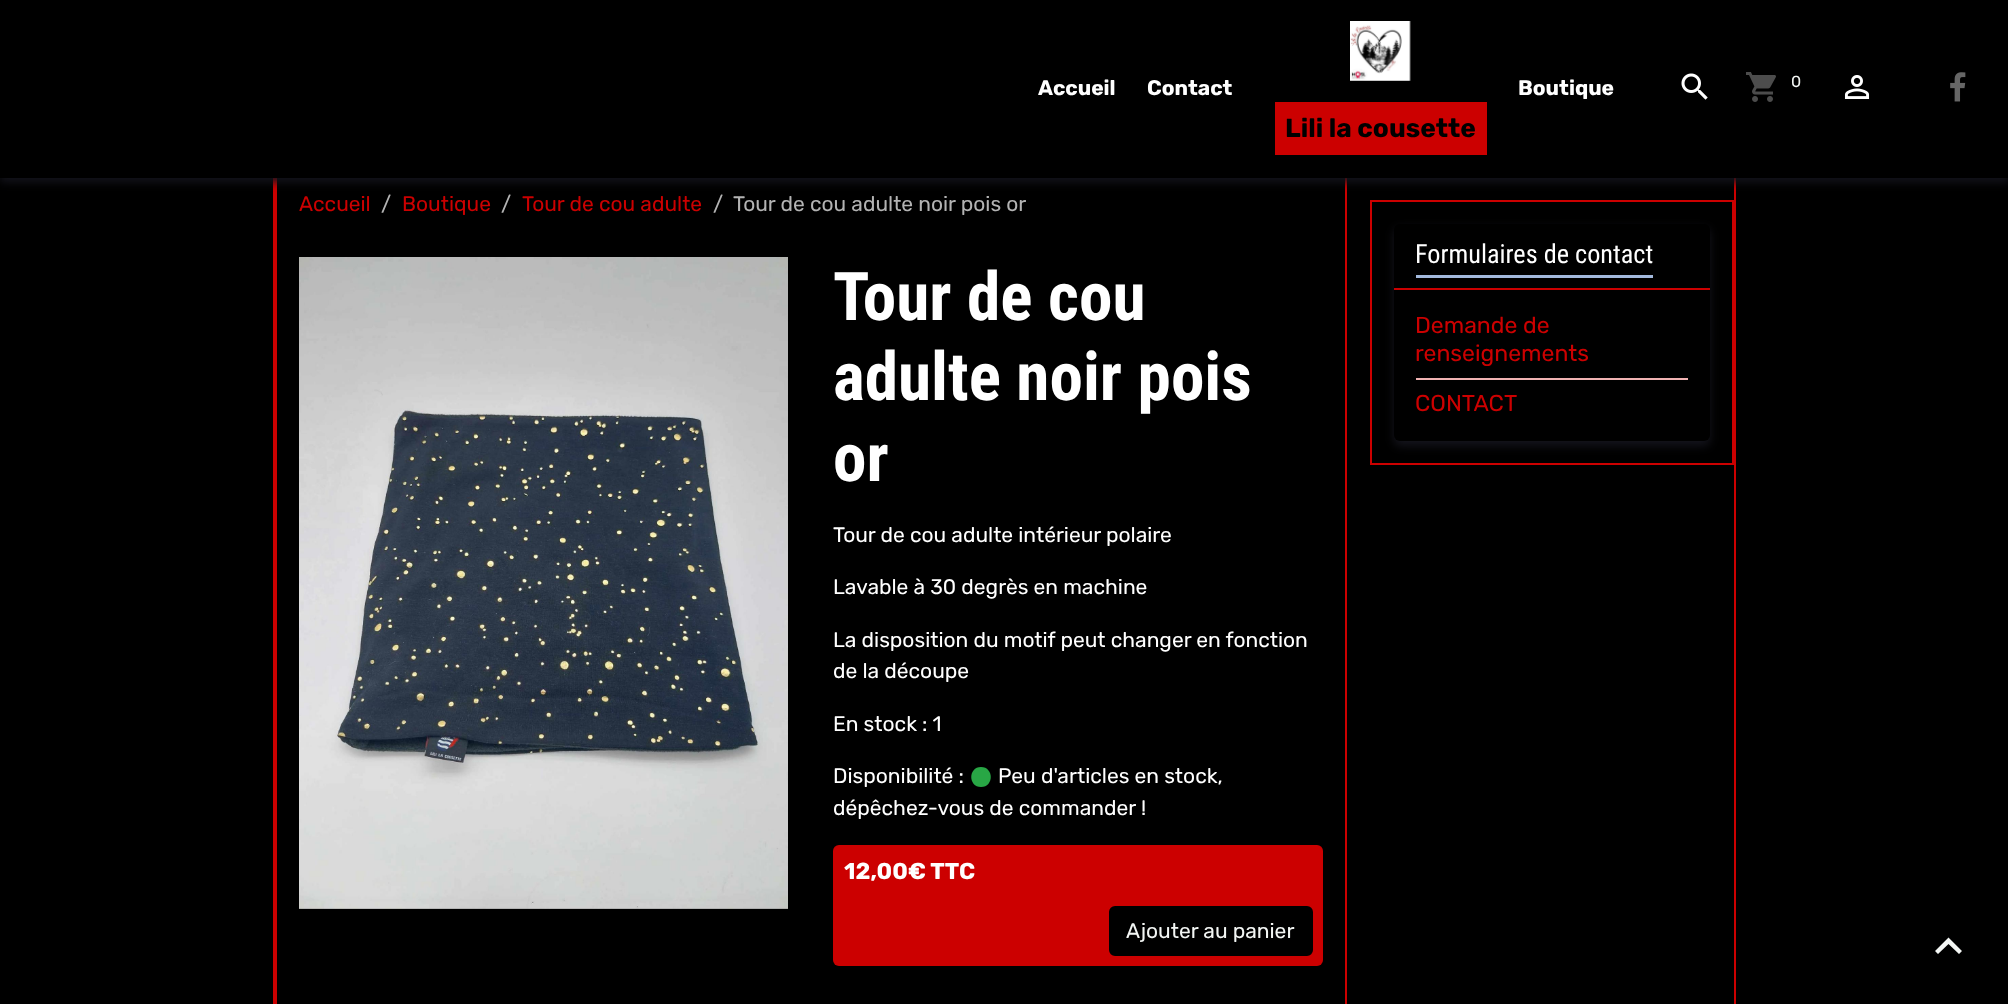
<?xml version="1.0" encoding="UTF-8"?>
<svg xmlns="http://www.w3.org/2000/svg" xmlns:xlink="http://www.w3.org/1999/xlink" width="2008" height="1004">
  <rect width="100%" height="100%" fill="#000000" />
  <rect x="274" y="148" width="1461" height="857" fill="none" stroke="#cc0000" stroke-width="2" />
  <rect x="276" y="150" width="1070" height="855" fill="none" stroke="#cc0000" stroke-width="2" />
  <rect y="5" width="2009" height="177" fill="#14141c" filter="blur(5px)" />
  <rect width="2008" height="178" fill="#000000" />
  <image x="1681" y="73" width="27" height="27" xlink:href="image1.png" />
  <image x="1746" y="72" width="30" height="30" xlink:href="image2.png" />
  <image x="1844" y="75" width="26" height="24" xlink:href="image3.png" />
  <image x="1950" y="72" width="16" height="30" xlink:href="image4.png" />
  <image x="1350" y="21" width="61" height="60" xlink:href="image5.png" />
  <rect x="1275" y="102" width="212" height="53" fill="#cc0000" />
  <image x="299" y="257" width="489" height="652" xlink:href="image6.png" />
  <path d="M 981 767 c 13 0 13 20 0 20 c -13 0 -13 -20 0 -20 z" fill="#28a745" />
  <rect x="833" y="845" width="490" height="121" rx="6" fill="#cc0000" />
  <rect x="1110" y="907" width="202" height="48" rx="5" fill="#000000" stroke="#000000" stroke-width="2" />
  <rect x="1371" y="201" width="362" height="263" fill="none" stroke="#cc0000" stroke-width="2" />
  <rect x="1394" y="228" width="316" height="218" rx="6" fill="#14141c" filter="blur(5px)" />
  <rect x="1394" y="224" width="316" height="217" rx="6" fill="#000000" />
  <rect x="1394" y="288" width="316" height="2" fill="#cc0000" />
  <rect x="1416" y="275" width="237" height="3" fill="#a3b9dd" />
  <rect x="1416" y="378" width="272" height="2" fill="#f0b3b3" />
  <path d="M 1948.5 937.5 l 13.5 13.5 l -3 3 l -10.5 -10 l -10.5 10 l -3 -3 z" fill="#f3f6f4" />
  <text x="1038" y="95" style="font-family: Rubik; font-size: 21px; font-weight: bold; fill: #ffffff">Accueil</text>
  <text x="1147" y="95" style="font-family: Rubik; font-size: 21px; font-weight: bold; fill: #ffffff">Contact</text>
  <text x="1518" y="95" style="font-family: Rubik; font-size: 21px; font-weight: bold; fill: #ffffff">Boutique</text>
  <text x="1791" y="87" style="font-family: Rubik; font-size: 16px; fill: #f3f6f4">0</text>
  <text x="1285" y="137" style="font-family: Rubik; font-size: 26.25px; font-weight: bold; fill: #000000">Lili la cousette</text>
  <text x="299" y="211" style="font-family: Rubik; font-size: 21px; fill: #cc0000">Accueil</text>
  <text x="381" y="211" style="font-family: Rubik; font-size: 21px; fill: #b3b3b3">/</text>
  <text x="402" y="211" style="font-family: Rubik; font-size: 21px; fill: #cc0000">Boutique</text>
  <text x="501" y="211" style="font-family: Rubik; font-size: 21px; fill: #b3b3b3">/</text>
  <text x="522" y="211" style="font-family: Rubik; font-size: 21px; fill: #cc0000">Tour de cou adulte</text>
  <text x="713" y="211" style="font-family: Rubik; font-size: 21px; fill: #b3b3b3">/</text>
  <text x="733" y="211" style="font-family: Rubik; font-size: 21px; fill: #b3b3b3">Tour de cou adulte noir pois or</text>
  <text x="833" y="320" style="font-family: Roboto Condensed; font-size: 67.25px; font-weight: bold; fill: #ffffff">Tour de cou</text>
  <text x="833" y="400" style="font-family: Roboto Condensed; font-size: 67.25px; font-weight: bold; fill: #ffffff">adulte noir pois</text>
  <text x="833" y="481" style="font-family: Roboto Condensed; font-size: 67.25px; font-weight: bold; fill: #ffffff">or</text>
  <text x="833" y="542" style="font-family: Rubik; font-size: 21px; fill: #ffffff">Tour de cou adulte intérieur polaire</text>
  <text x="833" y="594" style="font-family: Rubik; font-size: 21px; fill: #ffffff">Lavable à 30 degrès en machine</text>
  <text x="833" y="647" style="font-family: Rubik; font-size: 21px; fill: #ffffff">La disposition du motif peut changer en fonction</text>
  <text x="833" y="678" style="font-family: Rubik; font-size: 21px; fill: #ffffff">de la découpe</text>
  <text x="833" y="731" style="font-family: Rubik; font-size: 21px; fill: #ffffff">En stock : 1</text>
  <text x="833" y="783" style="font-family: Rubik; font-size: 21px; fill: #ffffff">Disponibilité :</text>
  <text x="998" y="783" style="font-family: Rubik; font-size: 21px; fill: #ffffff">Peu d'articles en stock,</text>
  <text x="833" y="815" style="font-family: Rubik; font-size: 21px; fill: #ffffff">dépêchez-vous de commander !</text>
  <text x="844" y="879" style="font-family: Rubik; font-size: 23px; font-weight: bold; fill: #ffffff">12,00€ TTC</text>
  <text x="1126" y="938" style="font-family: Rubik; font-size: 21px; fill: #f3f6f4">Ajouter au panier</text>
  <text x="1415" y="263" style="font-family: Roboto Condensed; font-size: 26.25px; fill: #ffffff">Formulaires de contact</text>
  <text x="1415" y="333" style="font-family: Rubik; font-size: 23px; fill: #cc0000">Demande de</text>
  <text x="1415" y="361" style="font-family: Rubik; font-size: 23px; fill: #cc0000">renseignements</text>
  <text x="1415" y="411" style="font-family: Rubik; font-size: 23px; fill: #cc0000">CONTACT</text>
</svg>
